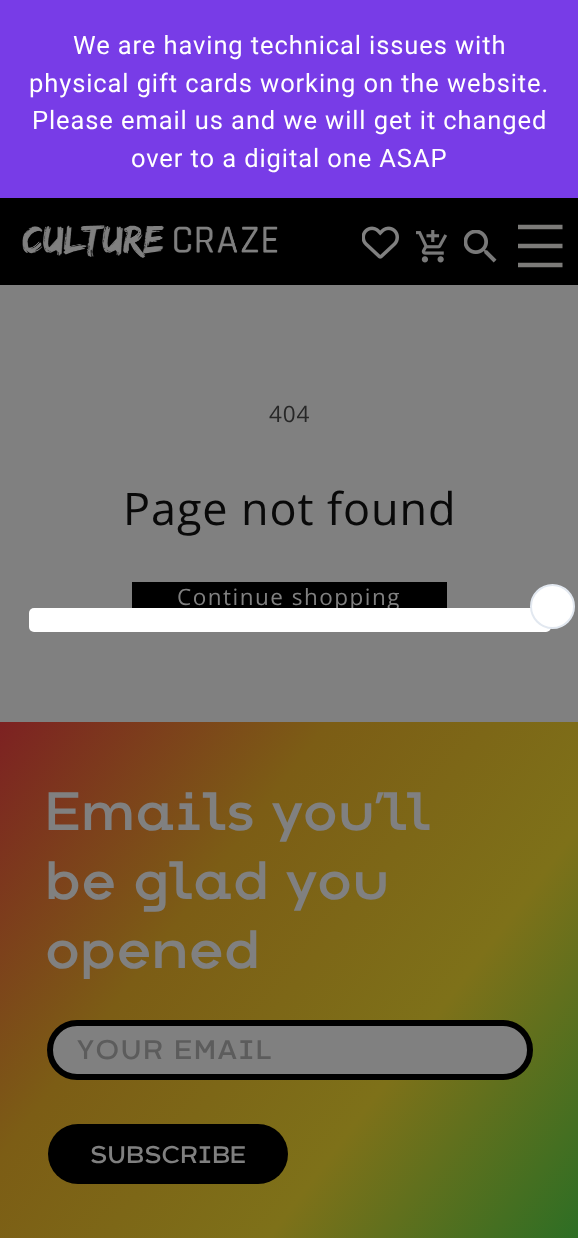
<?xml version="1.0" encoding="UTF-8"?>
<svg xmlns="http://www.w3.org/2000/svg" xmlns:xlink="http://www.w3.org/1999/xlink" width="578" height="1238">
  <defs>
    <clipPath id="clip1"><rect x="518" y="224" width="45" height="45" /></clipPath>
    <linearGradient id="g1" gradientUnits="userSpaceOnUse" x1="398" y1="193" x2="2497" y2="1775"><stop offset="0" stop-color="#7d2122" /><stop offset="0.1" stop-color="#7c5d15" /><stop offset="0.2" stop-color="#7e7119" /><stop offset="0.3" stop-color="#286e25" /><stop offset="0.4" stop-color="#206d6c" /><stop offset="0.5" stop-color="#186571" /><stop offset="0.6" stop-color="#214a78" /><stop offset="0.7" stop-color="#4c2f69" /><stop offset="0.8" stop-color="#631a7d" /><stop offset="0.9" stop-color="#751d5c" /></linearGradient>
  </defs>
  <rect width="100%" height="100%" fill="#808080" />
  <rect width="578" height="198" fill="#783ce7" />
  <rect y="198" width="578" height="87" fill="#000000" />
  <image x="22" y="225" width="256" height="33" xlink:href="image1.png" />
  <image x="362" y="226" width="37" height="33" xlink:href="image2.png" />
  <image x="416" y="230" width="32" height="33" xlink:href="image3.png" />
  <image x="464" y="230" width="33" height="33" xlink:href="image4.png" />
  <g clip-path="url(#clip1)">
    <path d="M 517.5 227 h 45 m -45 19 h 45 m -45 19 h 45" fill="none" stroke="#7c7b79" stroke-width="4.5" />
  </g>
  <rect x="132" y="582" width="315" height="26" fill="#000000" />
  <rect y="722" width="578" height="516" fill="url(#g1)" />
  <rect x="50" y="1023" width="480" height="54" rx="27" fill="#808080" stroke="#000000" stroke-width="6" />
  <rect x="48" y="1124" width="240" height="60" rx="30" fill="#000000" />
  <text x="73" y="54" style="font-family: Roboto; font-size: 25.5px; letter-spacing: 0.9px; fill: #ffffff">We are having technical issues with</text>
  <text x="29" y="92" style="font-family: Roboto; font-size: 25.5px; letter-spacing: 0.9px; fill: #ffffff">physical gift cards working on the website.</text>
  <text x="32" y="129" style="font-family: Roboto; font-size: 25.5px; letter-spacing: 0.9px; fill: #ffffff">Please email us and we will get it changed</text>
  <text x="131" y="167" style="font-family: Roboto; font-size: 25.5px; letter-spacing: 0.9px; fill: #ffffff">over to a digital one ASAP</text>
  <text x="269" y="422" style="font-family: Open Sans; font-size: 22.5px; letter-spacing: 0.9px; fill: #272727">404</text>
  <text x="123" y="525" style="font-family: Open Sans; font-size: 45px; letter-spacing: 0.9px; fill: #090909">Page not found</text>
  <text x="177" y="605" style="font-family: Open Sans; font-size: 22.5px; letter-spacing: 1.5px; fill: #808080">Continue shopping</text>
  <rect x="29" y="608" width="522" height="24" rx="5" fill="#ffffff" />
  <circle cx="552.5" cy="606.5" r="21.5" fill="#ffffff" stroke="#e2e8f0" stroke-width="2" />
  <text x="45" y="830" style="font-family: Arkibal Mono; font-size: 54px; fill: #808080">Emails you’ll</text>
  <text x="45" y="899" style="font-family: Arkibal Mono; font-size: 54px; fill: #808080">be glad you</text>
  <text x="45" y="968" style="font-family: Arkibal Mono; font-size: 54px; fill: #808080">opened</text>
  <text x="77" y="1059" style="font-family: Arkibal Mono; font-size: 27px; letter-spacing: 1.5px; fill: #5c5c5c">YOUR EMAIL</text>
  <text x="90" y="1163" style="font-family: Arkibal Mono; font-size: 24px; fill: #808080">SUBSCRIBE</text>
</svg>
